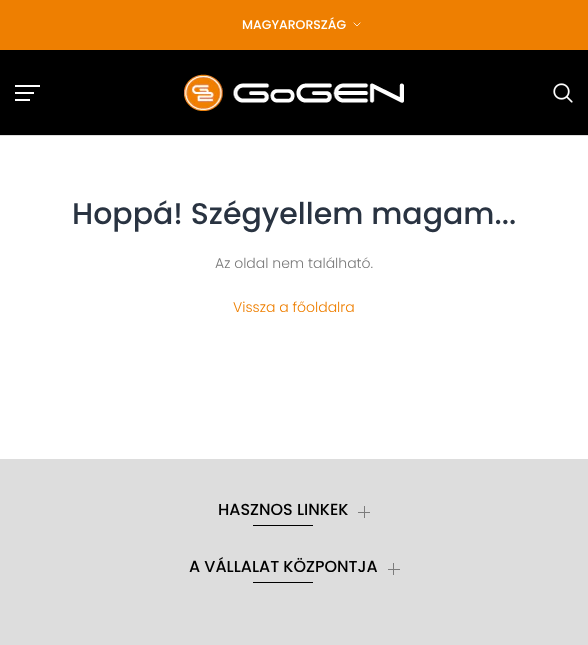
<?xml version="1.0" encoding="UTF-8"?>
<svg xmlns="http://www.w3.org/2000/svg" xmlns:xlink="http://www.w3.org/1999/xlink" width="588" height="645">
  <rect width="100%" height="100%" fill="#ffffff" />
  <rect width="588" height="50" fill="#ee7f01" />
  <path d="M 360 23 l -3 3 l -3 -3" fill="none" stroke="#ffffff" stroke-width="0.8" stroke-linecap="square" />
  <rect y="50" width="588" height="85" fill="#000000" />
  <rect y="135" width="588" height="1" fill="#dddddd" />
  <rect x="15" y="85" width="25" height="2" fill="#ffffff" />
  <rect x="15" y="92" width="19" height="2" fill="#ffffff" />
  <rect x="15" y="99" width="15" height="2" fill="#ffffff" />
  <image x="184" y="74" width="220" height="37" xlink:href="image1.png" />
  <image x="553" y="83" width="20" height="20" xlink:href="image2.png" />
  <rect y="459" width="588" height="186" fill="#dddddd" />
  <rect x="253" y="525" width="60" height="1" fill="#000000" />
  <rect x="364" y="506" width="1" height="12" fill="#7b7b7b" />
  <rect x="358" y="512" width="12" height="1" fill="#7b7b7b" />
  <rect x="253" y="582" width="60" height="1" fill="#000000" />
  <rect x="393" y="563" width="1" height="12" fill="#7b7b7b" />
  <rect x="388" y="569" width="12" height="1" fill="#7b7b7b" />
  <text x="242" y="29" style="font-family: Poppins; font-size: 12.5px; font-weight: 500; fill: #ffffff">MAGYARORSZÁG</text>
  <text x="72" y="224" style="font-family: Poppins; font-size: 30px; font-weight: 500; fill: #293341">Hoppá! Szégyellem magam...</text>
  <text x="215" y="268" style="font-family: Poppins; font-size: 14px; font-weight: 300; fill: #7b7b7b">Az oldal nem található.</text>
  <text x="233" y="312" style="font-family: Poppins; font-size: 14px; font-weight: 300; fill: #ee7f01">Vissza a főoldalra</text>
  <text x="218" y="515" style="font-family: Poppins; font-size: 16px; font-weight: 500; fill: #000000">HASZNOS LINKEK</text>
  <text x="189" y="572" style="font-family: Poppins; font-size: 16px; font-weight: 500; fill: #000000">A VÁLLALAT KÖZPONTJA</text>
</svg>
